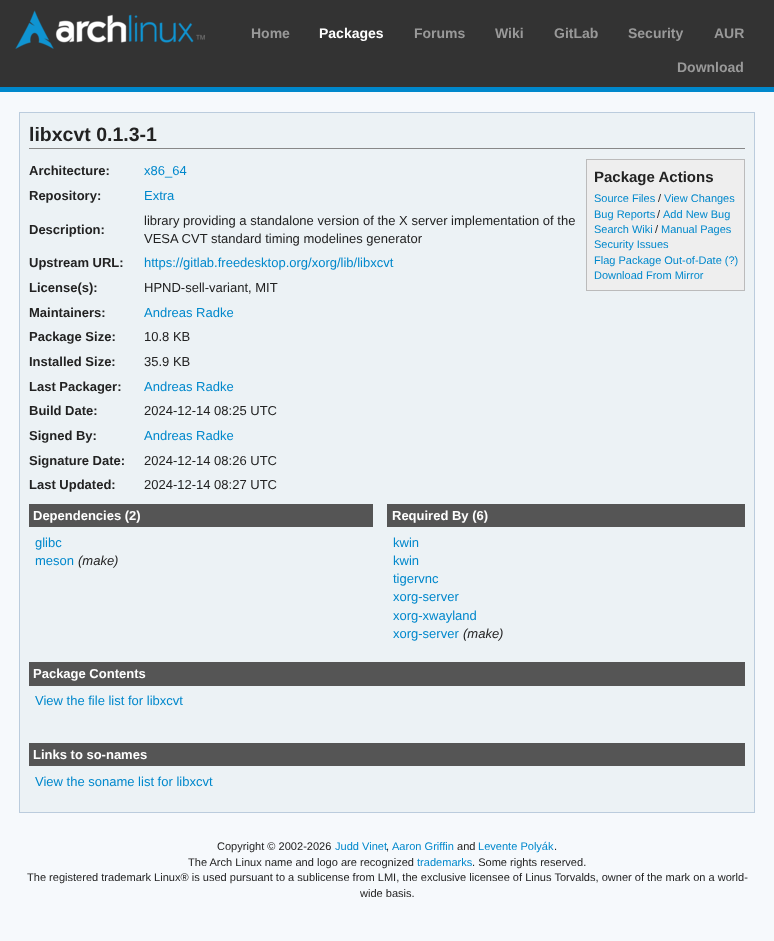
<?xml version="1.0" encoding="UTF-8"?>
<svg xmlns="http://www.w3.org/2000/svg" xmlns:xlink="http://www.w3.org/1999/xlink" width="774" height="941">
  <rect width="100%" height="100%" fill="#f6f9fc" />
  <rect width="774" height="87" fill="#333333" />
  <rect y="87" width="774" height="5" fill="#0088cc" />
  <image x="15" y="10" width="190" height="39" xlink:href="image1.png" />
  <rect x="19.5" y="112.5" width="735" height="700" fill="#ecf2f5" stroke="#bbccdd" />
  <rect x="29" y="148" width="716" height="1" fill="#888888" />
  <rect x="586.5" y="159.5" width="158" height="131" fill="#eeeeee" stroke="#bbbbbb" />
  <rect x="29" y="504" width="344" height="23" fill="#555555" />
  <rect x="387" y="504" width="358" height="23" fill="#555555" />
  <rect x="29" y="662" width="716" height="24" fill="#555555" />
  <rect x="29" y="743" width="716" height="23" fill="#555555" />
  <text x="251" y="38" style="font-family: Liberation Sans; font-size: 14px; font-weight: bold; fill: #999999">Home</text>
  <text x="319" y="38" style="font-family: Liberation Sans; font-size: 14px; font-weight: bold; fill: #ffffff">Packages</text>
  <text x="414" y="38" style="font-family: Liberation Sans; font-size: 14px; font-weight: bold; fill: #999999">Forums</text>
  <text x="495" y="38" style="font-family: Liberation Sans; font-size: 14px; font-weight: bold; fill: #999999">Wiki</text>
  <text x="554" y="38" style="font-family: Liberation Sans; font-size: 14px; font-weight: bold; fill: #999999">GitLab</text>
  <text x="628" y="38" style="font-family: Liberation Sans; font-size: 14px; font-weight: bold; fill: #999999">Security</text>
  <text x="714" y="38" style="font-family: Liberation Sans; font-size: 14px; font-weight: bold; fill: #999999">AUR</text>
  <text x="677" y="72" style="font-family: Liberation Sans; font-size: 14px; font-weight: bold; fill: #999999">Download</text>
  <text x="29" y="141" style="font-family: Liberation Sans; font-size: 19.5px; font-weight: bold; fill: #222222">libxcvt 0.1.3-1</text>
  <text x="29" y="175" style="font-family: Liberation Sans; font-size: 13px; font-weight: bold; fill: #222222">Architecture:</text>
  <text x="144" y="175" style="font-family: Liberation Sans; font-size: 13px; fill: #0088cc">x86_64</text>
  <text x="29" y="200" style="font-family: Liberation Sans; font-size: 13px; font-weight: bold; fill: #222222">Repository:</text>
  <text x="144" y="200" style="font-family: Liberation Sans; font-size: 13px; fill: #0088cc">Extra</text>
  <text x="29" y="234" style="font-family: Liberation Sans; font-size: 13px; font-weight: bold; fill: #222222">Description:</text>
  <text x="144" y="225" style="font-family: Liberation Sans; font-size: 13px; fill: #222222">library providing a standalone version of the X server implementation of the</text>
  <text x="144" y="243" style="font-family: Liberation Sans; font-size: 13px; fill: #222222">VESA CVT standard timing modelines generator</text>
  <text x="29" y="267" style="font-family: Liberation Sans; font-size: 13px; font-weight: bold; fill: #222222">Upstream URL:</text>
  <text x="144" y="267" style="font-family: Liberation Sans; font-size: 13px; fill: #0088cc">https://gitlab.freedesktop.org/xorg/lib/libxcvt</text>
  <text x="29" y="292" style="font-family: Liberation Sans; font-size: 13px; font-weight: bold; fill: #222222">License(s):</text>
  <text x="144" y="292" style="font-family: Liberation Sans; font-size: 13px; fill: #222222">HPND-sell-variant, MIT</text>
  <text x="29" y="317" style="font-family: Liberation Sans; font-size: 13px; font-weight: bold; fill: #222222">Maintainers:</text>
  <text x="144" y="317" style="font-family: Liberation Sans; font-size: 13px; fill: #0088cc">Andreas Radke</text>
  <text x="29" y="341" style="font-family: Liberation Sans; font-size: 13px; font-weight: bold; fill: #222222">Package Size:</text>
  <text x="144" y="341" style="font-family: Liberation Sans; font-size: 13px; fill: #222222">10.8 KB</text>
  <text x="29" y="366" style="font-family: Liberation Sans; font-size: 13px; font-weight: bold; fill: #222222">Installed Size:</text>
  <text x="144" y="366" style="font-family: Liberation Sans; font-size: 13px; fill: #222222">35.9 KB</text>
  <text x="29" y="391" style="font-family: Liberation Sans; font-size: 13px; font-weight: bold; fill: #222222">Last Packager:</text>
  <text x="144" y="391" style="font-family: Liberation Sans; font-size: 13px; fill: #0088cc">Andreas Radke</text>
  <text x="29" y="415" style="font-family: Liberation Sans; font-size: 13px; font-weight: bold; fill: #222222">Build Date:</text>
  <text x="144" y="415" style="font-family: Liberation Sans; font-size: 13px; fill: #222222">2024-12-14 08:25 UTC</text>
  <text x="29" y="440" style="font-family: Liberation Sans; font-size: 13px; font-weight: bold; fill: #222222">Signed By:</text>
  <text x="144" y="440" style="font-family: Liberation Sans; font-size: 13px; fill: #0088cc">Andreas Radke</text>
  <text x="29" y="465" style="font-family: Liberation Sans; font-size: 13px; font-weight: bold; fill: #222222">Signature Date:</text>
  <text x="144" y="465" style="font-family: Liberation Sans; font-size: 13px; fill: #222222">2024-12-14 08:26 UTC</text>
  <text x="29" y="489" style="font-family: Liberation Sans; font-size: 13px; font-weight: bold; fill: #222222">Last Updated:</text>
  <text x="144" y="489" style="font-family: Liberation Sans; font-size: 13px; fill: #222222">2024-12-14 08:27 UTC</text>
  <text x="594" y="182" style="font-family: Liberation Sans; font-size: 15px; font-weight: bold; fill: #222222">Package Actions</text>
  <text x="594" y="202" style="font-family: Liberation Sans; font-size: 11px; fill: #0088cc">Source Files</text>
  <text x="658" y="202" style="font-family: Liberation Sans; font-size: 11px; fill: #222222">/</text>
  <text x="664" y="202" style="font-family: Liberation Sans; font-size: 11px; fill: #0088cc">View Changes</text>
  <text x="594" y="218" style="font-family: Liberation Sans; font-size: 11px; fill: #0088cc">Bug Reports</text>
  <text x="657" y="218" style="font-family: Liberation Sans; font-size: 11px; fill: #222222">/</text>
  <text x="663" y="218" style="font-family: Liberation Sans; font-size: 11px; fill: #0088cc">Add New Bug</text>
  <text x="594" y="233" style="font-family: Liberation Sans; font-size: 11px; fill: #0088cc">Search Wiki</text>
  <text x="655" y="233" style="font-family: Liberation Sans; font-size: 11px; fill: #222222">/</text>
  <text x="661" y="233" style="font-family: Liberation Sans; font-size: 11px; fill: #0088cc">Manual Pages</text>
  <text x="594" y="248" style="font-family: Liberation Sans; font-size: 11px; fill: #0088cc">Security Issues</text>
  <text x="594" y="264" style="font-family: Liberation Sans; font-size: 11px; fill: #0088cc">Flag Package Out-of-Date (?)</text>
  <text x="594" y="279" style="font-family: Liberation Sans; font-size: 11px; fill: #0088cc">Download From Mirror</text>
  <text x="33" y="520" style="font-family: Liberation Sans; font-size: 13px; font-weight: bold; fill: #ffffff">Dependencies (2)</text>
  <text x="35" y="547" style="font-family: Liberation Sans; font-size: 13px; fill: #0088cc">glibc</text>
  <text x="35" y="565" style="font-family: Liberation Sans; font-size: 13px; fill: #0088cc">meson</text>
  <text x="78" y="565" style="font-family: Liberation Sans; font-size: 13px; font-style: italic; fill: #222222">(make)</text>
  <text x="392" y="520" style="font-family: Liberation Sans; font-size: 13px; font-weight: bold; fill: #ffffff">Required By (6)</text>
  <text x="393" y="547" style="font-family: Liberation Sans; font-size: 13px; fill: #0088cc">kwin</text>
  <text x="393" y="565" style="font-family: Liberation Sans; font-size: 13px; fill: #0088cc">kwin</text>
  <text x="393" y="583" style="font-family: Liberation Sans; font-size: 13px; fill: #0088cc">tigervnc</text>
  <text x="393" y="601" style="font-family: Liberation Sans; font-size: 13px; fill: #0088cc">xorg-server</text>
  <text x="393" y="620" style="font-family: Liberation Sans; font-size: 13px; fill: #0088cc">xorg-xwayland</text>
  <text x="393" y="638" style="font-family: Liberation Sans; font-size: 13px; fill: #0088cc">xorg-server</text>
  <text x="463" y="638" style="font-family: Liberation Sans; font-size: 13px; font-style: italic; fill: #222222">(make)</text>
  <text x="33" y="678" style="font-family: Liberation Sans; font-size: 13px; font-weight: bold; fill: #ffffff">Package Contents</text>
  <text x="35" y="705" style="font-family: Liberation Sans; font-size: 13px; fill: #0088cc">View the file list for libxcvt</text>
  <text x="33" y="759" style="font-family: Liberation Sans; font-size: 13px; font-weight: bold; fill: #ffffff">Links to so-names</text>
  <text x="35" y="786" style="font-family: Liberation Sans; font-size: 13px; fill: #0088cc">View the soname list for libxcvt</text>
  <text x="217" y="850" style="font-family: Liberation Sans; font-size: 11.05px; fill: #222222">Copyright © 2002-2026</text>
  <text x="335" y="850" style="font-family: Liberation Sans; font-size: 11.05px; fill: #0088cc">Judd Vinet</text>
  <text x="386" y="850" style="font-family: Liberation Sans; font-size: 11.05px; fill: #222222">,</text>
  <text x="392" y="850" style="font-family: Liberation Sans; font-size: 11.05px; fill: #0088cc">Aaron Griffin</text>
  <text x="457" y="850" style="font-family: Liberation Sans; font-size: 11.05px; fill: #222222">and</text>
  <text x="478" y="850" style="font-family: Liberation Sans; font-size: 11.05px; fill: #0088cc">Levente Polyák</text>
  <text x="554" y="850" style="font-family: Liberation Sans; font-size: 11.05px; fill: #222222">.</text>
  <text x="188" y="866" style="font-family: Liberation Sans; font-size: 11.05px; fill: #222222">The Arch Linux name and logo are recognized</text>
  <text x="417" y="866" style="font-family: Liberation Sans; font-size: 11.05px; fill: #0088cc">trademarks</text>
  <text x="472" y="866" style="font-family: Liberation Sans; font-size: 11.05px; fill: #222222">. Some rights reserved.</text>
  <text x="27" y="881" style="font-family: Liberation Sans; font-size: 11.05px; fill: #222222">The registered trademark Linux® is used pursuant to a sublicense from LMI, the exclusive licensee of Linus Torvalds, owner of the mark on a world-</text>
  <text x="360" y="897" style="font-family: Liberation Sans; font-size: 11.05px; fill: #222222">wide basis.</text>
</svg>
